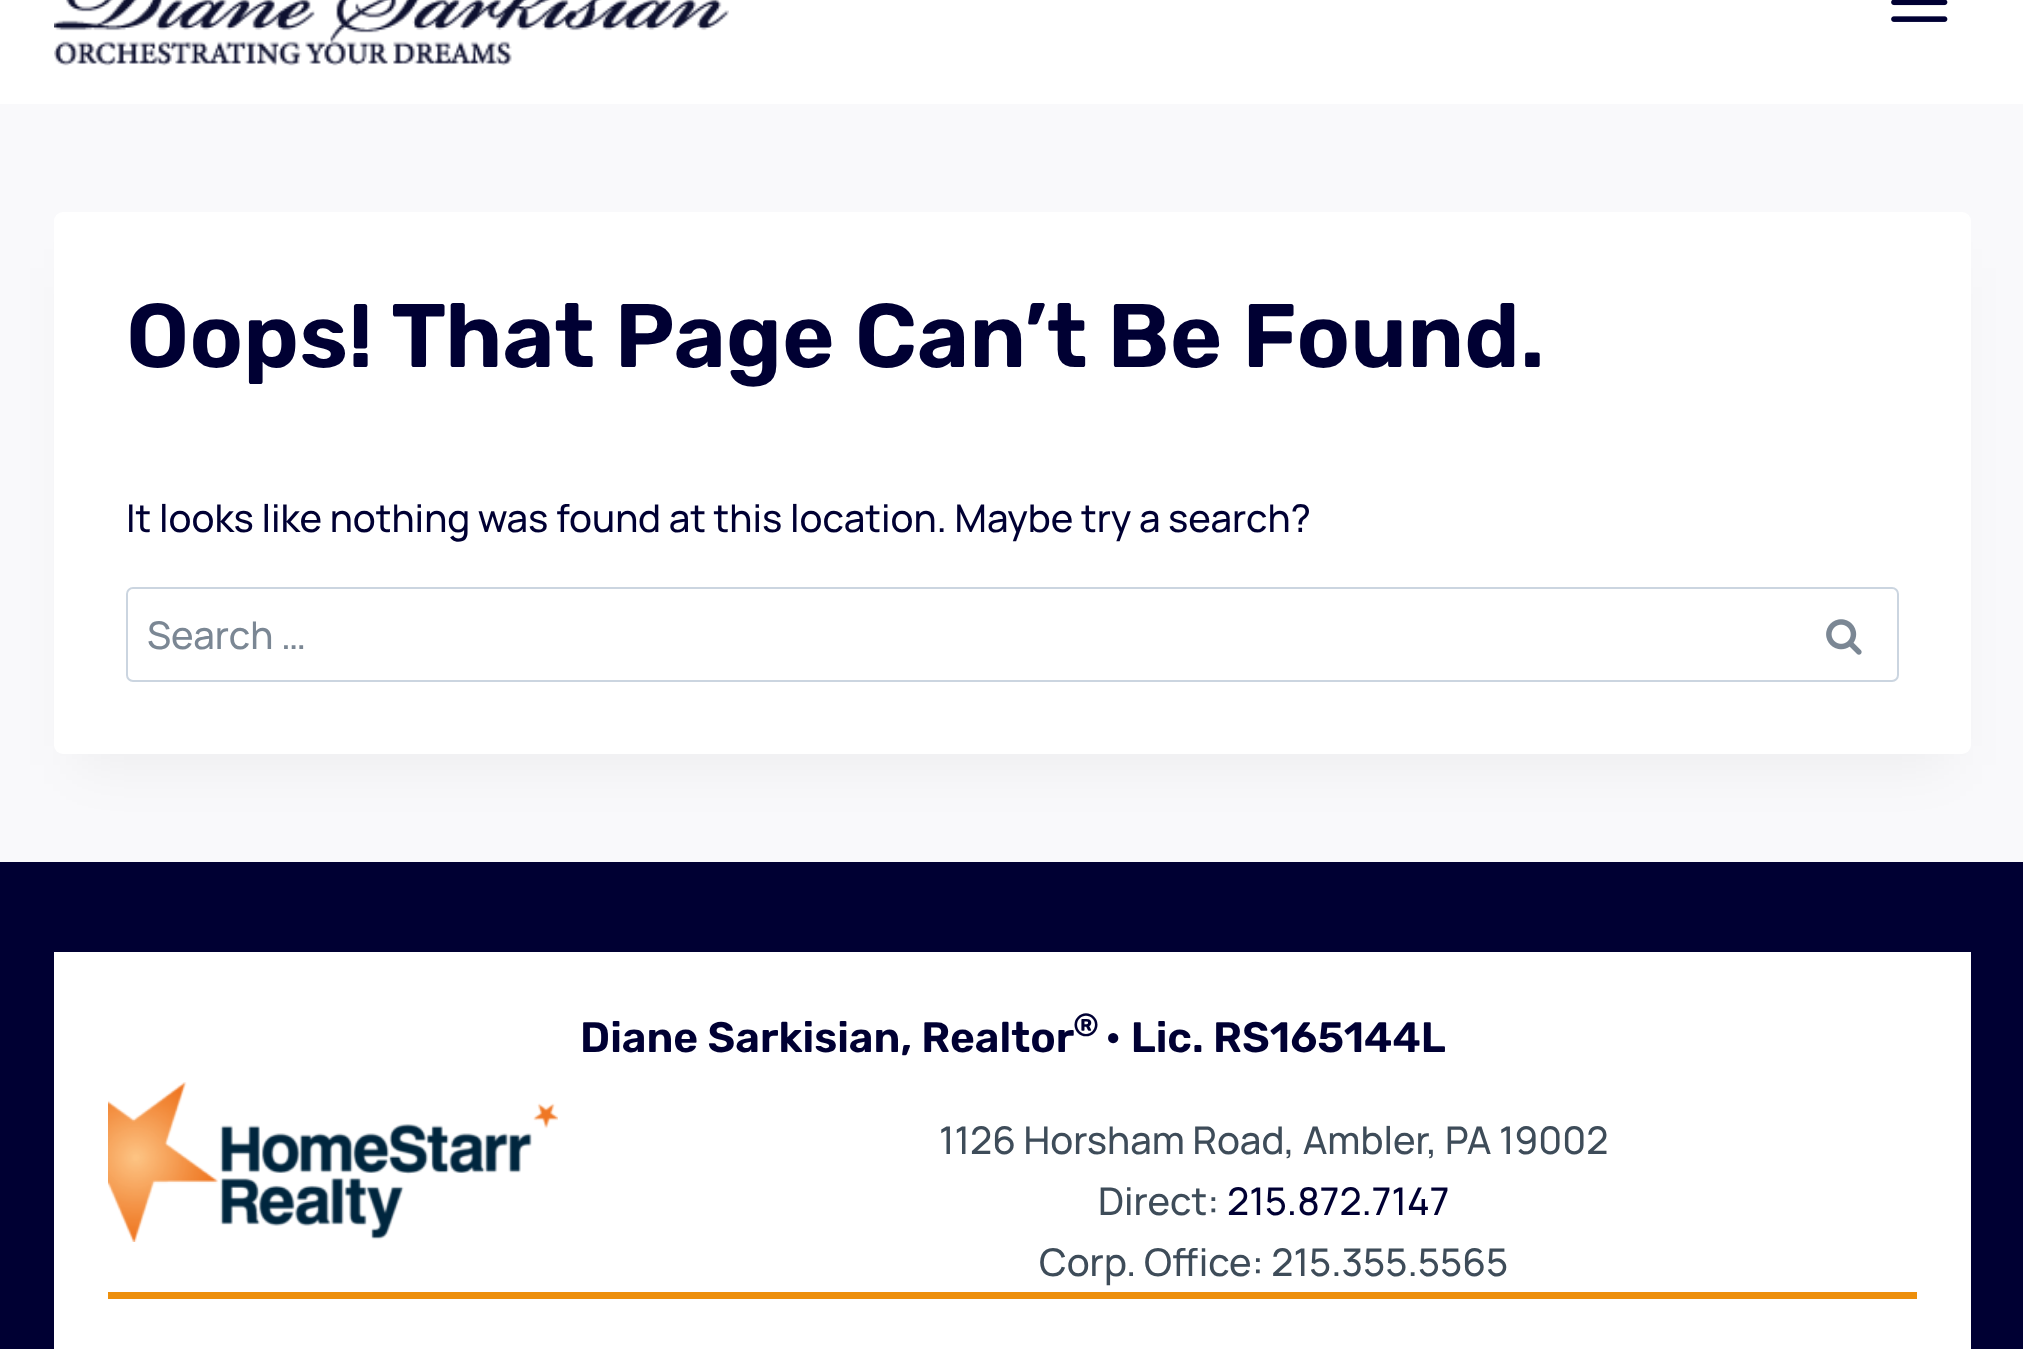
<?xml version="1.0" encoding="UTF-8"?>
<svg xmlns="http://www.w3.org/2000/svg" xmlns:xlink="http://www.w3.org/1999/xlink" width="2023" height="1349">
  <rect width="100%" height="100%" fill="#f9f9fb" />
  <rect width="2023" height="104" fill="#ffffff" />
  <image x="54" y="0" width="675" height="66" xlink:href="image1.png" />
  <image x="1891" y="0" width="57" height="22" xlink:href="image2.png" />
  <rect x="77" y="268" width="1872" height="497" fill="#000000" fill-opacity="0.05" filter="blur(28px)" />
  <rect x="54" y="212" width="1917" height="542" rx="9" fill="#ffffff" />
  <rect x="127" y="588" width="1771" height="93" rx="6" fill="none" stroke="#cbd5e0" stroke-width="2" />
  <image x="1826" y="619" width="36" height="36" xlink:href="image3.png" />
  <rect y="862" width="2023" height="487" fill="#000033" />
  <rect x="54" y="952" width="1917" height="397" fill="#ffffff" />
  <image x="108" y="1082" width="450" height="160" xlink:href="image4.png" />
  <rect x="108" y="1292" width="1809" height="7" fill="#ed8f0c" />
  <text x="126" y="367" style="font-family: Rubik; font-size: 90px; font-weight: 600; fill: #000033">Oops! That Page Can’t Be Found.</text>
  <text x="126" y="532" style="font-family: Manrope; font-size: 38.25px; font-weight: 500; fill: #000033">It looks like nothing was found at this location. Maybe try a search?</text>
  <text x="147" y="649" style="font-family: Manrope; font-size: 38.25px; font-weight: 500; fill: #7b8794">Search …</text>
  <text x="580" y="1052" style="font-family: Rubik; font-size: 42.5px; font-weight: 600; fill: #000033">Diane Sarkisian, Realtor</text>
  <text x="1073" y="1036" style="font-family: Rubik; font-size: 32px; font-weight: 600; fill: #000033">®</text>
  <text x="1105" y="1052" style="font-family: Rubik; font-size: 42.5px; font-weight: 600; fill: #000033">• Lic. RS165144L</text>
  <text x="939" y="1154" style="font-family: Manrope; font-size: 38.25px; font-weight: 500; fill: #3e4c59">1126 Horsham Road, Ambler, PA 19002</text>
  <text x="1098" y="1215" style="font-family: Manrope; font-size: 38.25px; font-weight: 500; fill: #3e4c59">Direct:</text>
  <text x="1227" y="1215" style="font-family: Manrope; font-size: 38.25px; font-weight: 500; fill: #000033">215.872.7147</text>
  <text x="1039" y="1276" style="font-family: Manrope; font-size: 38.25px; font-weight: 500; fill: #3e4c59">Corp. Office: 215.355.5565</text>
</svg>
